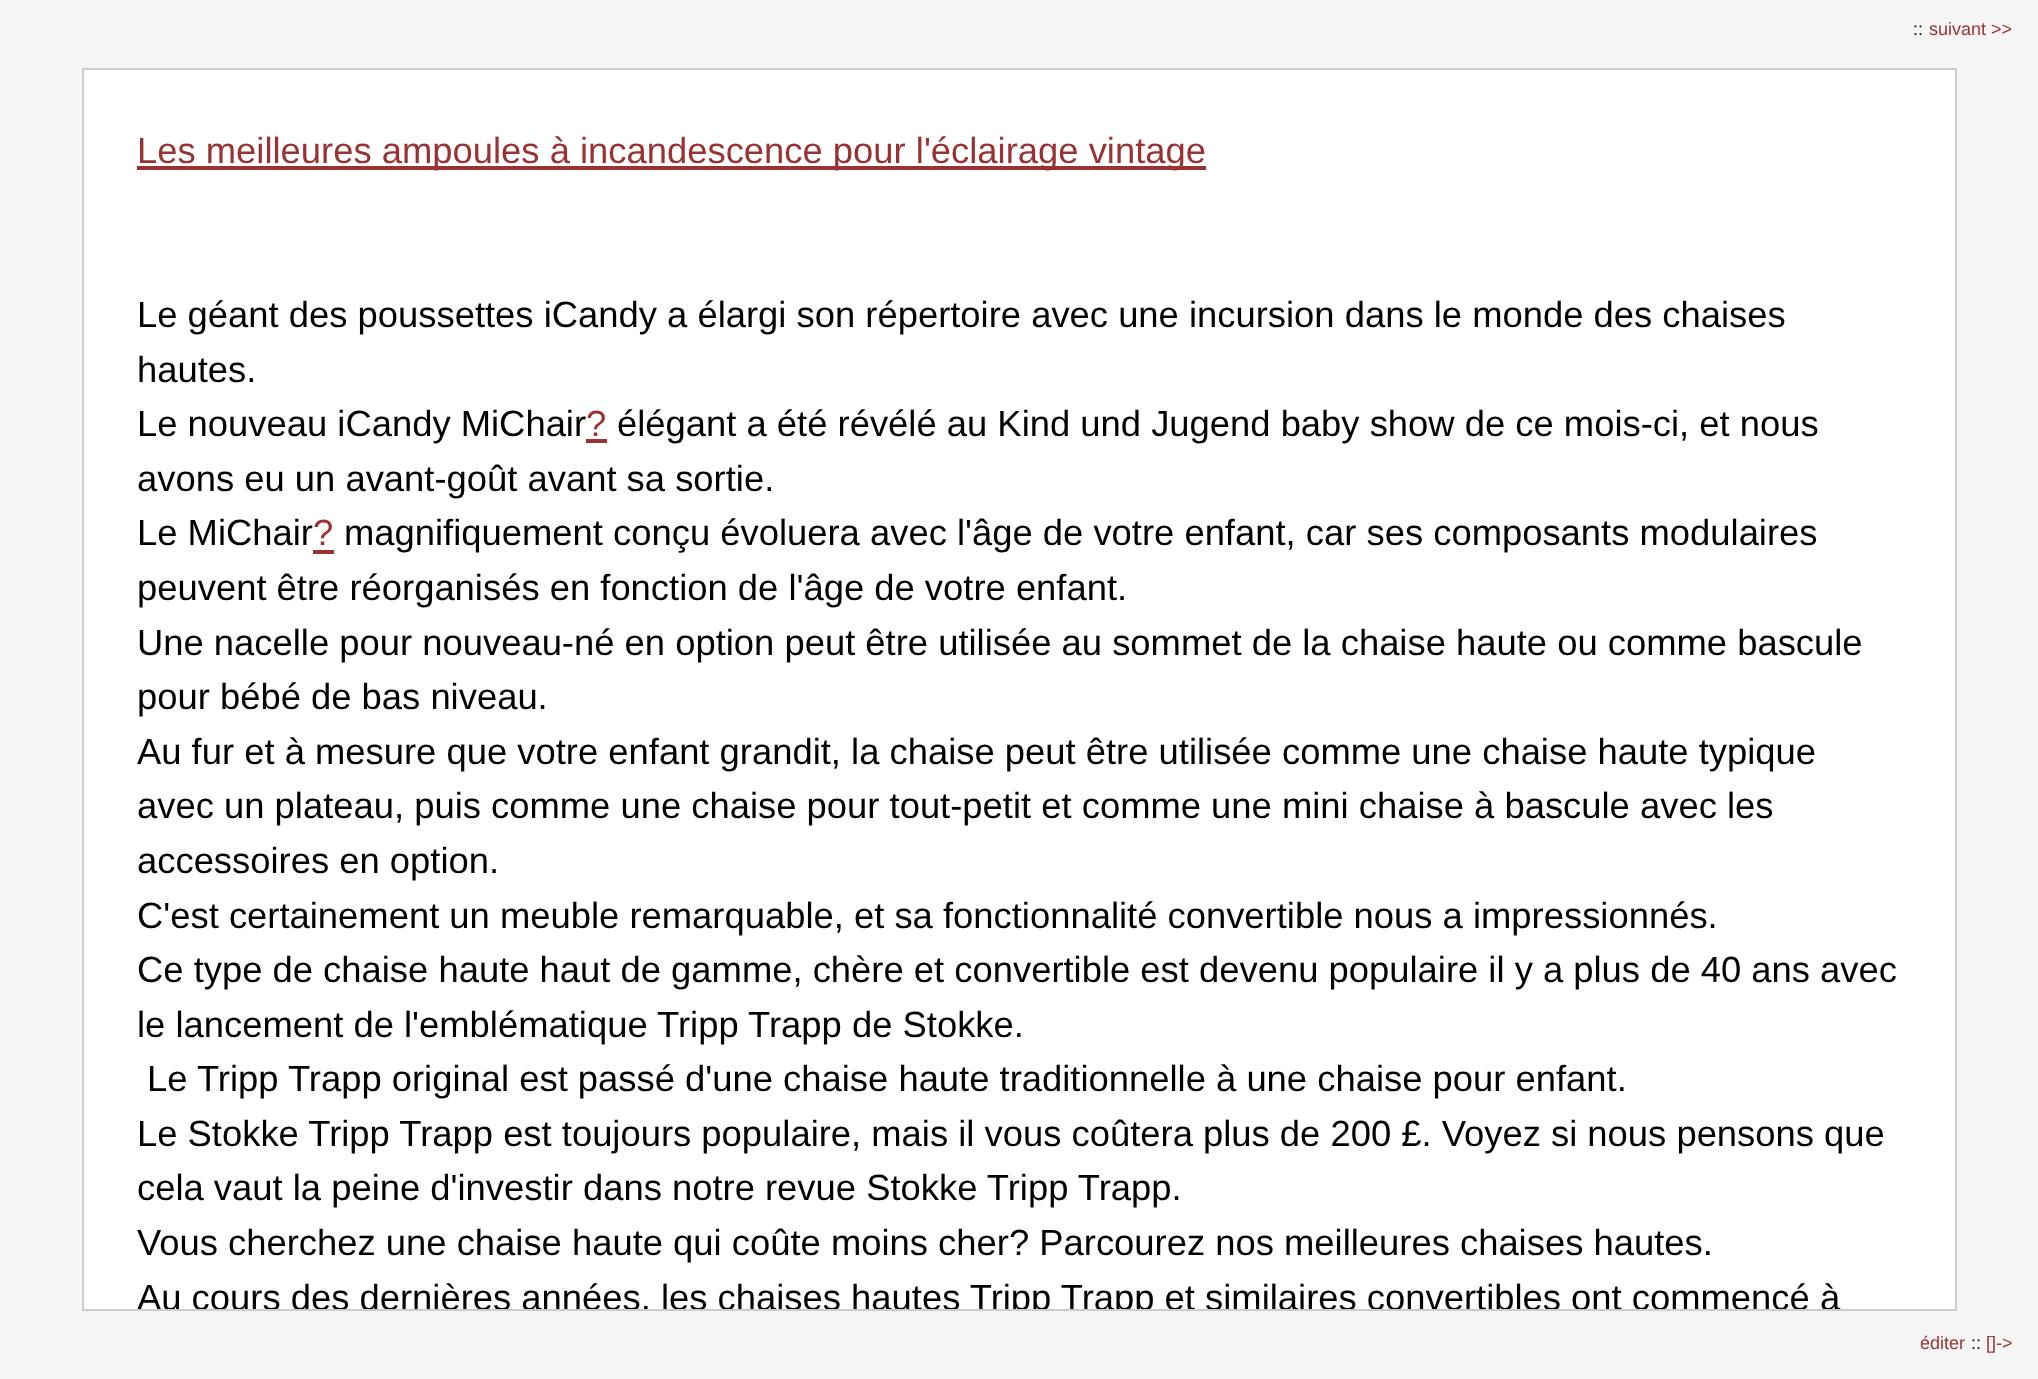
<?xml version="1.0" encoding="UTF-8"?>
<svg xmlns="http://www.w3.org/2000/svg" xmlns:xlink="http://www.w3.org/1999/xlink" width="2038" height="1379">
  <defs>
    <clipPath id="clip1"><rect x="84" y="70" width="1871" height="1239" /></clipPath>
  </defs>
  <rect width="100%" height="100%" fill="#f5f5f5" />
  <rect x="83" y="69" width="1873" height="1241" fill="#ffffff" stroke="#cccccc" stroke-width="2" />
  <rect x="137" y="166" width="1069" height="4" fill="#993333" />
  <rect x="586" y="439" width="21" height="4" fill="#993333" />
  <rect x="313" y="550" width="21" height="4" fill="#993333" />
  <text x="1913" y="35" style="font-family: Liberation Sans; font-size: 18px; fill: #000000">::</text>
  <text x="1929" y="35" style="font-family: Liberation Sans; font-size: 18px; fill: #993333">suivant &gt;&gt;</text>
  <text x="137" y="163" style="font-family: Liberation Sans; font-size: 36.4px; fill: #993333">Les meilleures ampoules à incandescence pour l'éclairage vintage</text>
  <text x="137" y="327" style="font-family: Liberation Sans; font-size: 36.4px; fill: #000000">Le géant des poussettes iCandy a élargi son répertoire avec une incursion dans le monde des chaises</text>
  <text x="137" y="382" style="font-family: Liberation Sans; font-size: 36.4px; fill: #000000">hautes.</text>
  <text x="137" y="436" style="font-family: Liberation Sans; font-size: 36.4px; fill: #000000">Le nouveau iCandy MiChair</text>
  <text x="586" y="436" style="font-family: Liberation Sans; font-size: 36.4px; fill: #993333">?</text>
  <text x="617" y="436" style="font-family: Liberation Sans; font-size: 36.4px; fill: #000000">élégant a été révélé au Kind und Jugend baby show de ce mois-ci, et nous</text>
  <text x="137" y="491" style="font-family: Liberation Sans; font-size: 36.4px; fill: #000000">avons eu un avant-goût avant sa sortie.</text>
  <text x="137" y="545" style="font-family: Liberation Sans; font-size: 36.4px; fill: #000000">Le MiChair</text>
  <text x="313" y="545" style="font-family: Liberation Sans; font-size: 36.4px; fill: #993333">?</text>
  <text x="344" y="545" style="font-family: Liberation Sans; font-size: 36.4px; fill: #000000">magnifiquement conçu évoluera avec l'âge de votre enfant, car ses composants modulaires</text>
  <text x="137" y="600" style="font-family: Liberation Sans; font-size: 36.4px; fill: #000000">peuvent être réorganisés en fonction de l'âge de votre enfant.</text>
  <text x="137" y="655" style="font-family: Liberation Sans; font-size: 36.4px; fill: #000000">Une nacelle pour nouveau-né en option peut être utilisée au sommet de la chaise haute ou comme bascule</text>
  <text x="137" y="709" style="font-family: Liberation Sans; font-size: 36.4px; fill: #000000">pour bébé de bas niveau.</text>
  <text x="137" y="764" style="font-family: Liberation Sans; font-size: 36.4px; fill: #000000">Au fur et à mesure que votre enfant grandit, la chaise peut être utilisée comme une chaise haute typique</text>
  <text x="137" y="818" style="font-family: Liberation Sans; font-size: 36.4px; fill: #000000">avec un plateau, puis comme une chaise pour tout-petit et comme une mini chaise à bascule avec les</text>
  <text x="137" y="873" style="font-family: Liberation Sans; font-size: 36.4px; fill: #000000">accessoires en option.</text>
  <text x="137" y="928" style="font-family: Liberation Sans; font-size: 36.4px; fill: #000000">C'est certainement un meuble remarquable, et sa fonctionnalité convertible nous a impressionnés.</text>
  <text x="137" y="982" style="font-family: Liberation Sans; font-size: 36.4px; fill: #000000">Ce type de chaise haute haut de gamme, chère et convertible est devenu populaire il y a plus de 40 ans avec</text>
  <text x="137" y="1037" style="font-family: Liberation Sans; font-size: 36.4px; fill: #000000">le lancement de l'emblématique Tripp Trapp de Stokke.</text>
  <text x="147" y="1091" style="font-family: Liberation Sans; font-size: 36.4px; fill: #000000">Le Tripp Trapp original est passé d'une chaise haute traditionnelle à une chaise pour enfant.</text>
  <text x="137" y="1146" style="font-family: Liberation Sans; font-size: 36.4px; fill: #000000">Le Stokke Tripp Trapp est toujours populaire, mais il vous coûtera plus de 200 £. Voyez si nous pensons que</text>
  <text x="137" y="1200" style="font-family: Liberation Sans; font-size: 36.4px; fill: #000000">cela vaut la peine d'investir dans notre revue Stokke Tripp Trapp.</text>
  <text x="137" y="1255" style="font-family: Liberation Sans; font-size: 36.4px; fill: #000000">Vous cherchez une chaise haute qui coûte moins cher? Parcourez nos meilleures chaises hautes.</text>
  <g clip-path="url(#clip1)">
    <text x="137" y="1310" style="font-family: Liberation Sans; font-size: 36.4px; fill: #000000">Au cours des dernières années, les chaises hautes Tripp Trapp et similaires convertibles ont commencé à</text>
  </g>
  <text x="1920" y="1349" style="font-family: Liberation Sans; font-size: 18px; fill: #993333">éditer</text>
  <text x="1971" y="1349" style="font-family: Liberation Sans; font-size: 18px; fill: #000000">::</text>
  <text x="1986" y="1349" style="font-family: Liberation Sans; font-size: 18px; fill: #993333">[]-&gt;</text>
</svg>
